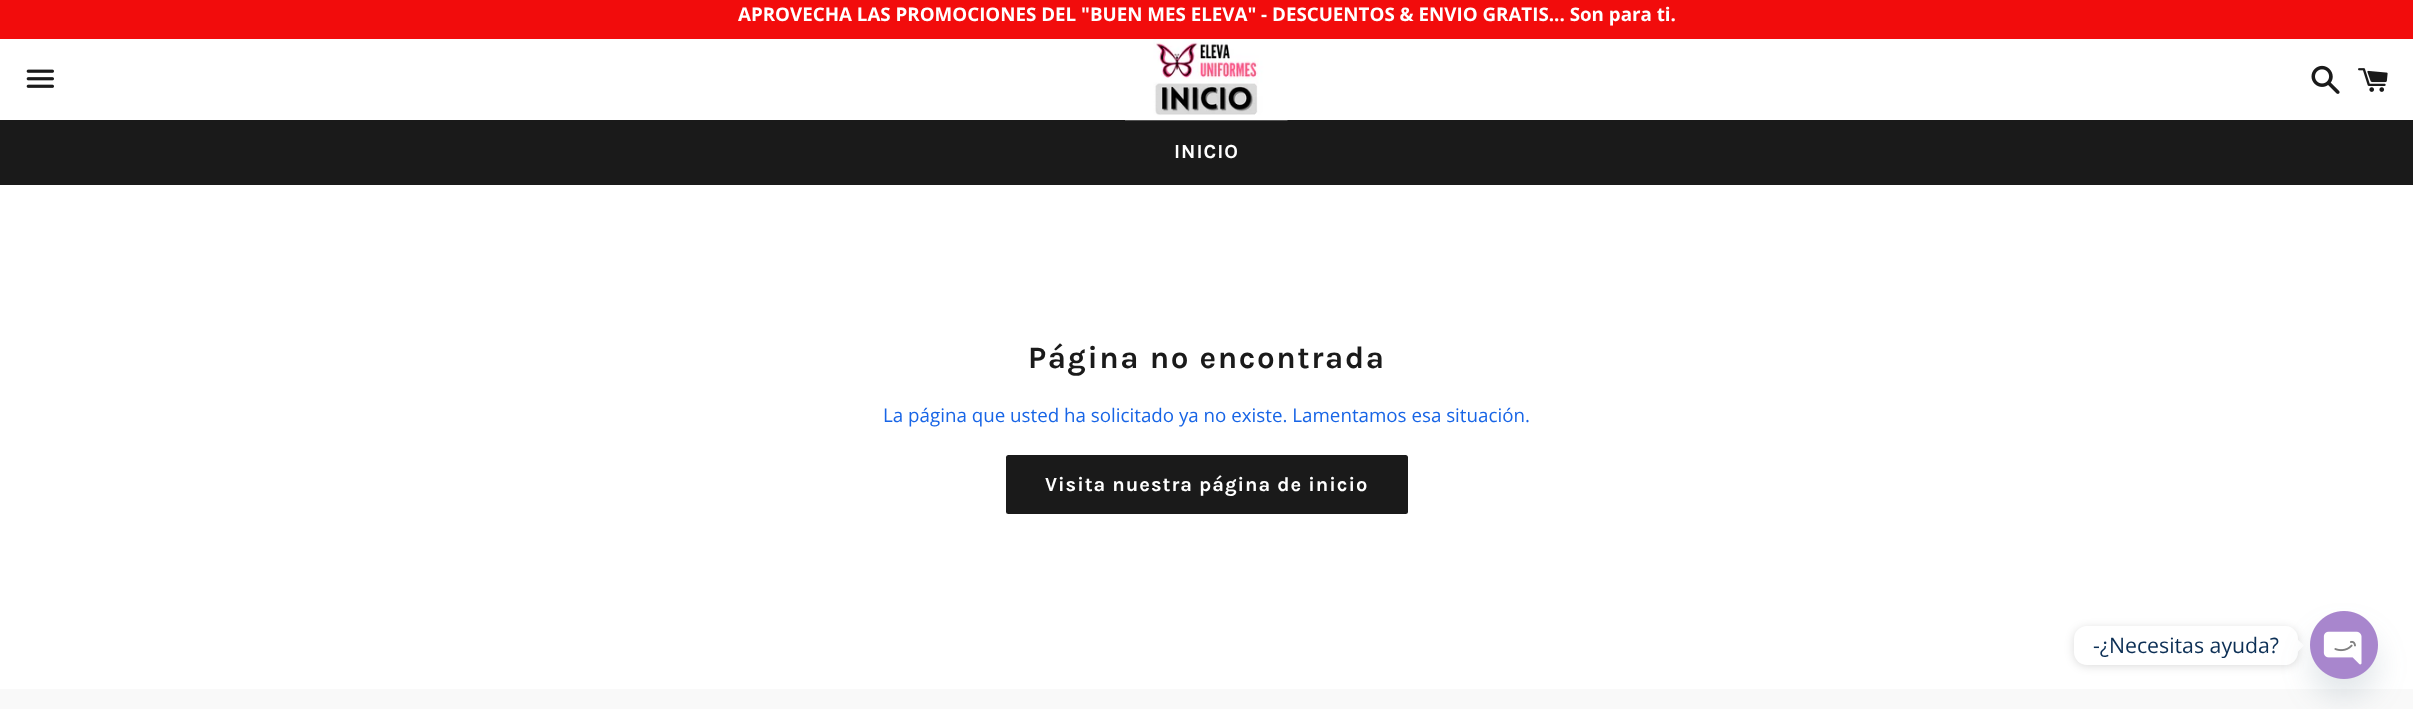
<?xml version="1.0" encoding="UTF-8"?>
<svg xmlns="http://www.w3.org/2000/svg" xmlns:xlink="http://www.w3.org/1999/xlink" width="2413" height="709">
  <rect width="100%" height="100%" fill="#ffffff" />
  <rect width="2413" height="39" fill="#f20c0c" />
  <image x="26" y="69" width="28" height="19" xlink:href="image1.png" />
  <rect y="120" width="2413" height="65" fill="#1a1a1a" />
  <image x="1125" y="39" width="163" height="82" xlink:href="image2.png" />
  <image x="2311" y="65" width="29" height="29" xlink:href="image3.png" />
  <image x="2358" y="68" width="30" height="24" xlink:href="image4.png" />
  <rect x="1006" y="455" width="402" height="59" rx="2.5" fill="#1a1a1a" />
  <rect y="689" width="2413" height="20" fill="#f9f9f9" />
  <rect x="2074" y="628" width="224" height="38" rx="13" fill="#000000" fill-opacity="0.15" filter="blur(5px)" />
  <rect x="2074" y="626" width="224" height="39" rx="13" fill="#ffffff" />
  <path d="M 2297.5 652 v -12.5 l 6.5 6 z" fill="#ffffff" />
  <rect x="2310" y="631" width="68" height="68" rx="34" fill="#49687e" fill-opacity="0.16" filter="blur(15px)" />
  <image x="2310" y="611" width="68" height="68" xlink:href="image5.png" />
  <text x="738" y="21" style="font-family: Open Sans; font-size: 18.75px; font-weight: bold; fill: #ffffff">APROVECHA LAS PROMOCIONES DEL "BUEN MES ELEVA" - DESCUENTOS &amp; ENVIO GRATIS... Son para ti.</text>
  <text x="1174" y="158" style="font-family: Karla; font-size: 20px; font-weight: bold; letter-spacing: 1px; fill: #ffffff">INICIO</text>
  <text x="1028" y="368" style="font-family: Karla; font-size: 31.25px; font-weight: bold; letter-spacing: 1.6px; fill: #1a1a1a">Página no encontrada</text>
  <text x="883" y="422" style="font-family: Open Sans; font-size: 18.75px; fill: #1865e6">La página que usted ha solicitado ya no existe. Lamentamos esa situación.</text>
  <text x="1045" y="491" style="font-family: Karla; font-size: 20px; font-weight: bold; letter-spacing: 1px; fill: #ffffff">Visita nuestra página de inicio</text>
  <text x="2093" y="653" style="font-family: Open Sans; font-size: 21.25px; fill: #0d3056">-¿Necesitas ayuda?</text>
</svg>
